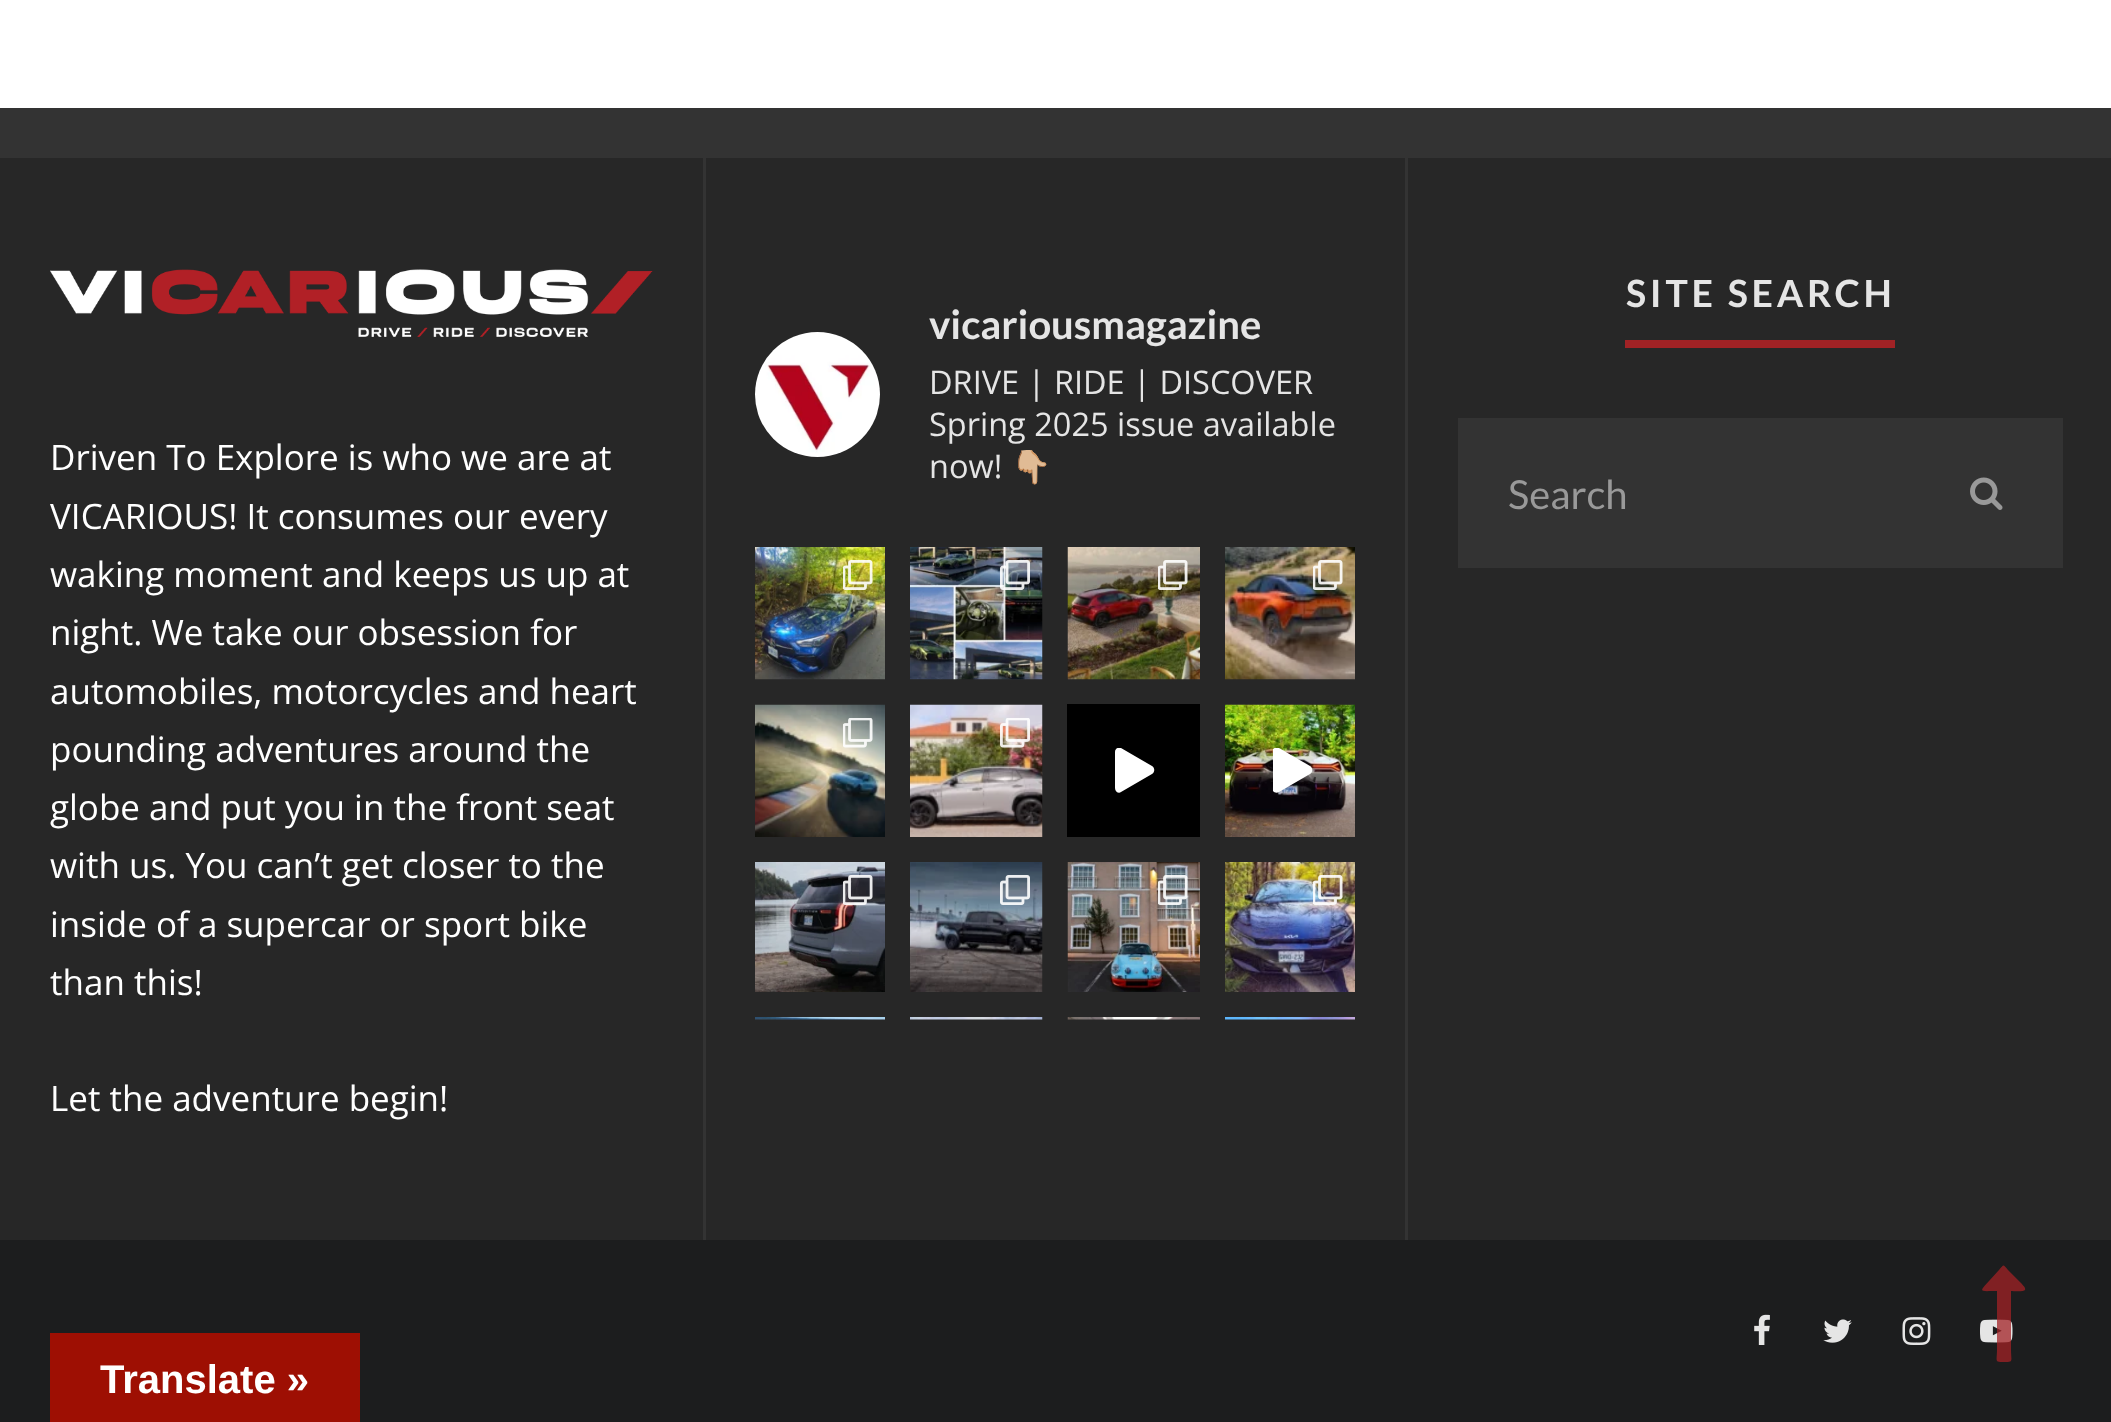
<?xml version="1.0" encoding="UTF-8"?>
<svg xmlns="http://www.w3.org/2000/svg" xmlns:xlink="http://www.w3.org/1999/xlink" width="2111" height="1422">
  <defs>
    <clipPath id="clip1"><rect x="1115" y="748" width="40" height="45" /></clipPath>
    <clipPath id="clip2"><rect x="1273" y="748" width="40" height="45" /></clipPath>
  </defs>
  <rect width="100%" height="100%" fill="#ffffff" />
  <rect y="1240" width="2111" height="182" fill="#1c1d1e" />
  <rect y="108" width="2111" height="50" fill="#333333" />
  <rect y="158" width="2111" height="1082" fill="#272727" />
  <rect x="1405" y="158" width="3" height="1082" fill="#333333" />
  <image x="755" y="332" width="125" height="125" xlink:href="image1.png" />
  <image x="755" y="547" width="130" height="133" xlink:href="image2.png" />
  <image x="843" y="560" width="30" height="30" xlink:href="image3.png" />
  <image x="910" y="547" width="133" height="133" xlink:href="image4.png" />
  <image x="1000" y="560" width="30" height="30" xlink:href="image5.png" />
  <image x="1067" y="547" width="133" height="133" xlink:href="image6.png" />
  <image x="1158" y="560" width="30" height="30" xlink:href="image7.png" />
  <image x="1225" y="547" width="130" height="133" xlink:href="image8.png" />
  <image x="1313" y="560" width="30" height="30" xlink:href="image9.png" />
  <image x="755" y="704" width="130" height="133" xlink:href="image10.png" />
  <image x="843" y="718" width="30" height="30" xlink:href="image11.png" />
  <image x="910" y="704" width="133" height="133" xlink:href="image12.png" />
  <image x="1000" y="718" width="30" height="30" xlink:href="image13.png" />
  <rect x="1067" y="704" width="133" height="133" fill="#000000" />
  <g clip-path="url(#clip1)">
    <path d="M 1152 766 l -31 -18 c -2 -1 -6 0 -6 4 v 36 c 0 4 4 6 6 4 l 31 -18 c 3 -2 3 -6 0 -8 z" fill="#ffffff" />
  </g>
  <image x="1225" y="704" width="130" height="133" xlink:href="image14.png" />
  <g clip-path="url(#clip2)">
    <path d="M 1310 766 l -31 -18 c -3 -1 -7 0 -7 4 v 36 c 0 4 4 6 7 4 l 31 -18 c 3 -2 3 -6 0 -8 z" fill="#ffffff" />
  </g>
  <image x="755" y="862" width="130" height="130" xlink:href="image15.png" />
  <image x="843" y="875" width="30" height="30" xlink:href="image16.png" />
  <image x="910" y="862" width="133" height="130" xlink:href="image17.png" />
  <image x="1000" y="875" width="30" height="30" xlink:href="image18.png" />
  <image x="1067" y="862" width="133" height="130" xlink:href="image19.png" />
  <image x="1158" y="875" width="30" height="30" xlink:href="image20.png" />
  <image x="1225" y="862" width="130" height="130" xlink:href="image21.png" />
  <image x="1313" y="875" width="30" height="30" xlink:href="image22.png" />
  <image x="755" y="1017" width="130" height="3" xlink:href="image23.png" />
  <image x="910" y="1017" width="133" height="3" xlink:href="image24.png" />
  <image x="1067" y="1017" width="133" height="3" xlink:href="image25.png" />
  <image x="1225" y="1017" width="130" height="3" xlink:href="image26.png" />
  <rect x="1625" y="340" width="270" height="8" fill="#a12225" />
  <rect x="1458" y="418" width="605" height="150" fill="#333333" />
  <image x="1970" y="477" width="33" height="33" xlink:href="image27.png" />
  <rect x="703" y="158" width="3" height="1082" fill="#333333" />
  <image x="50" y="269" width="603" height="68" xlink:href="image28.png" />
  <image x="1754" y="1314" width="16" height="31" xlink:href="image29.png" />
  <image x="1823" y="1319" width="29" height="24" xlink:href="image30.png" />
  <image x="1902" y="1317" width="29" height="28" xlink:href="image31.png" />
  <image x="1980" y="1319" width="33" height="24" xlink:href="image32.png" />
  <path d="M 2025 1290 c -1 2 -12 1 -14 1 v 58 c 0 13 3 13 -7 13 c -10 0 -7 0 -7 -13 v -58 c -17 0 -19 2 -8 -10 l 10 -11 c 5 -6 4 -6 9 0 l 14 14 c 0 1 4 3 3 6 z" fill="#a12225" fill-opacity="0.75" />
  <rect x="50" y="1333" width="310" height="89" fill="#9e0f03" />
  <text x="929" y="339" style="font-family: Lato; font-size: 40px; font-weight: bold; fill: #e5e5e5">vicariousmagazine</text>
  <text x="929" y="394" style="font-family: Open Sans; font-size: 32.5px; fill: #e5e5e5">DRIVE | RIDE | DISCOVER</text>
  <text x="929" y="436" style="font-family: Open Sans; font-size: 32.5px; fill: #e5e5e5">Spring 2025 issue available</text>
  <text x="929" y="478" style="font-family: Open Sans; font-size: 32.5px; fill: #e5e5e5">now!</text>
  <text x="1011" y="478" style="font-family: Noto Color Emoji; font-size: 32.5px; fill: #e5e5e5">👇🏼</text>
  <text x="1626" y="307" style="font-family: Lato; font-size: 37.5px; font-weight: bold; letter-spacing: 3.75px; fill: #e5e5e5">SITE SEARCH</text>
  <text x="1508" y="509" style="font-family: Lato; font-size: 40px; fill: #999999">Search</text>
  <text x="50" y="470" style="font-family: Open Sans; font-size: 35px; fill: #ffffff">Driven To Explore is who we are at</text>
  <text x="50" y="529" style="font-family: Open Sans; font-size: 35px; fill: #ffffff">VICARIOUS! It consumes our every</text>
  <text x="50" y="587" style="font-family: Open Sans; font-size: 35px; fill: #ffffff">waking moment and keeps us up at</text>
  <text x="50" y="645" style="font-family: Open Sans; font-size: 35px; fill: #ffffff">night. We take our obsession for</text>
  <text x="50" y="704" style="font-family: Open Sans; font-size: 35px; fill: #ffffff">automobiles, motorcycles and heart</text>
  <text x="50" y="762" style="font-family: Open Sans; font-size: 35px; fill: #ffffff">pounding adventures around the</text>
  <text x="50" y="820" style="font-family: Open Sans; font-size: 35px; fill: #ffffff">globe and put you in the front seat</text>
  <text x="50" y="878" style="font-family: Open Sans; font-size: 35px; fill: #ffffff">with us. You can’t get closer to the</text>
  <text x="50" y="937" style="font-family: Open Sans; font-size: 35px; fill: #ffffff">inside of a supercar or sport bike</text>
  <text x="50" y="995" style="font-family: Open Sans; font-size: 35px; fill: #ffffff">than this!</text>
  <text x="50" y="1111" style="font-family: Open Sans; font-size: 35px; fill: #ffffff">Let the adventure begin!</text>
  <text x="100" y="1393" style="font-family: Liberation Sans; font-size: 40px; font-weight: bold; fill: #ffffff">Translate »</text>
</svg>
